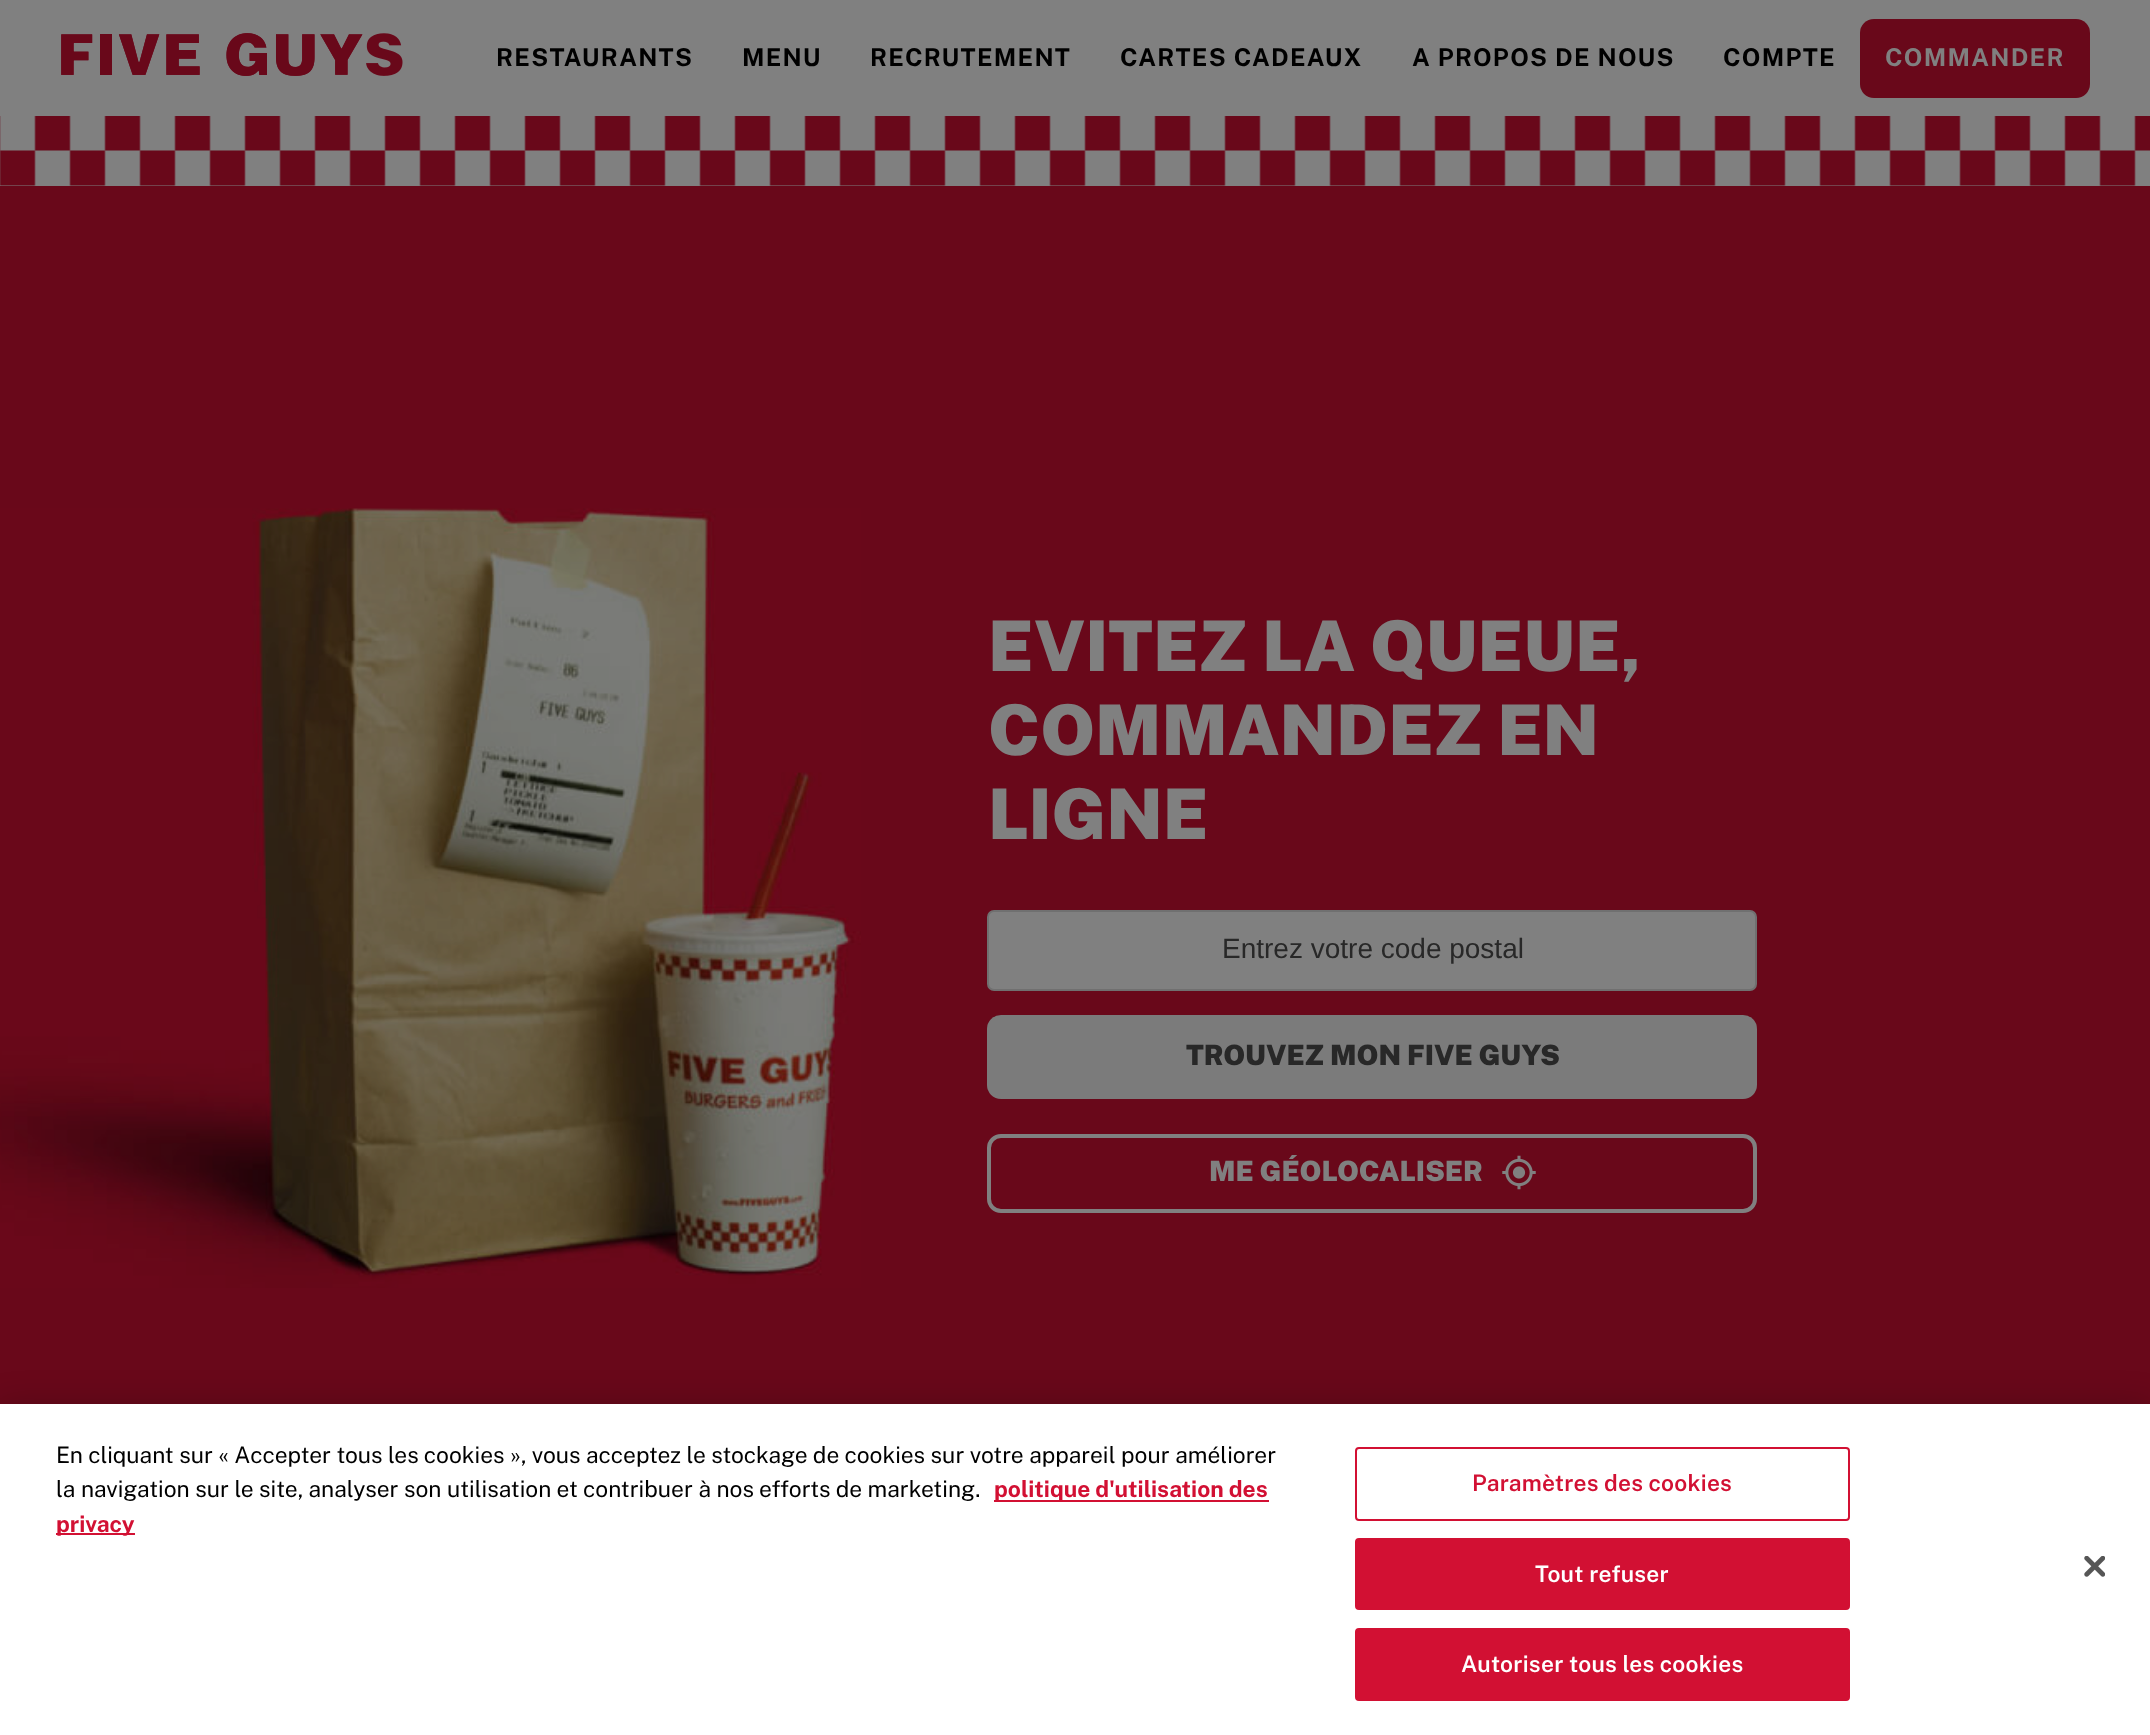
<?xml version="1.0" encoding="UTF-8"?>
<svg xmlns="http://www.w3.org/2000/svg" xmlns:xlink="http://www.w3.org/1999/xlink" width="2150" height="1735">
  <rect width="100%" height="100%" fill="#808080" />
  <image x="61" y="33" width="342" height="43" xlink:href="image1.png" />
  <rect x="1860" y="19" width="230" height="79" rx="14" fill="#69081a" />
  <image x="0" y="116" width="2150" height="70" xlink:href="image2.png" />
  <rect y="186" width="2150" height="1218" fill="#69081a" />
  <image x="0" y="508" width="861" height="780" xlink:href="image3.png" />
  <rect x="988" y="911" width="768" height="79" rx="6" fill="#808080" stroke="#707070" stroke-width="2" />
  <rect x="987" y="1015" width="770" height="84" rx="14" fill="#7b7b7b" />
  <rect x="989" y="1136" width="766" height="75" rx="12" fill="none" stroke="#808080" stroke-width="4" />
  <image x="1502" y="1155" width="34" height="35" xlink:href="image4.png" />
  <rect y="1404" width="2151" height="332" fill="#000000" fill-opacity="0.2" filter="blur(16px)" />
  <rect y="1404" width="2150" height="331" fill="#ffffff" />
  <rect x="994" y="1500" width="275" height="2" fill="#d21033" />
  <rect x="56" y="1533" width="79" height="2" fill="#d21033" />
  <rect x="1356" y="1448" width="493" height="72" rx="3" fill="none" stroke="#d21033" stroke-width="2" />
  <rect x="1356" y="1539" width="493" height="70" rx="3" fill="#d21033" stroke="#d21033" stroke-width="2" />
  <rect x="1356" y="1629" width="493" height="71" rx="3" fill="#d21033" stroke="#d21033" stroke-width="2" />
  <image x="2084" y="1556" width="21" height="21" xlink:href="image5.png" />
  <text x="496" y="66" style="font-family: Public Sans; font-size: 24.5px; font-weight: bold; letter-spacing: 1.25px; fill: #000000">RESTAURANTS</text>
  <text x="742" y="66" style="font-family: Public Sans; font-size: 24.5px; font-weight: bold; letter-spacing: 1.25px; fill: #000000">MENU</text>
  <text x="870" y="66" style="font-family: Public Sans; font-size: 24.5px; font-weight: bold; letter-spacing: 1.25px; fill: #000000">RECRUTEMENT</text>
  <text x="1120" y="66" style="font-family: Public Sans; font-size: 24.5px; font-weight: bold; letter-spacing: 1.25px; fill: #000000">CARTES CADEAUX</text>
  <text x="1412" y="66" style="font-family: Public Sans; font-size: 24.5px; font-weight: bold; letter-spacing: 1.25px; fill: #000000">A PROPOS DE NOUS</text>
  <text x="1723" y="66" style="font-family: Public Sans; font-size: 24.5px; font-weight: bold; letter-spacing: 1.25px; fill: #000000">COMPTE</text>
  <text x="1885" y="66" style="font-family: Public Sans; font-size: 24.5px; font-weight: bold; letter-spacing: 1.25px; fill: #808080">COMMANDER</text>
  <text x="988" y="671" style="font-family: Public Sans; font-size: 70px; font-weight: 900; fill: #808080">EVITEZ LA QUEUE,</text>
  <text x="988" y="755" style="font-family: Public Sans; font-size: 70px; font-weight: 900; fill: #808080">COMMANDEZ EN</text>
  <text x="988" y="839" style="font-family: Public Sans; font-size: 70px; font-weight: 900; fill: #808080">LIGNE</text>
  <text x="1222" y="958" style="font-family: Liberation Sans; font-size: 28px; fill: #282828">Entrez votre code postal</text>
  <text x="1186" y="1065" style="font-family: Public Sans; font-size: 28px; font-weight: 900; fill: #282828">TROUVEZ MON FIVE GUYS</text>
  <text x="1209" y="1181" style="font-family: Public Sans; font-size: 28px; font-weight: 900; fill: #808080">ME GÉOLOCALISER</text>
  <text x="56" y="1463" style="font-family: Public Sans; font-size: 22.75px; fill: #000000">En cliquant sur « Accepter tous les cookies », vous acceptez le stockage de cookies sur votre appareil pour améliorer</text>
  <text x="56" y="1497" style="font-family: Public Sans; font-size: 22.75px; fill: #000000">la navigation sur le site, analyser son utilisation et contribuer à nos efforts de marketing.</text>
  <text x="994" y="1497" style="font-family: Public Sans; font-size: 22.75px; font-weight: bold; fill: #d21033">politique d'utilisation des</text>
  <text x="56" y="1532" style="font-family: Public Sans; font-size: 22.75px; font-weight: bold; fill: #d21033">privacy</text>
  <text x="1472" y="1491" style="font-family: Public Sans; font-size: 22.75px; font-weight: 600; letter-spacing: 0.25px; fill: #d21033">Paramètres des cookies</text>
  <text x="1535" y="1582" style="font-family: Public Sans; font-size: 22.75px; font-weight: 600; letter-spacing: 0.25px; fill: #ffffff">Tout refuser</text>
  <text x="1461" y="1672" style="font-family: Public Sans; font-size: 22.75px; font-weight: 600; letter-spacing: 0.25px; fill: #ffffff">Autoriser tous les cookies</text>
</svg>
